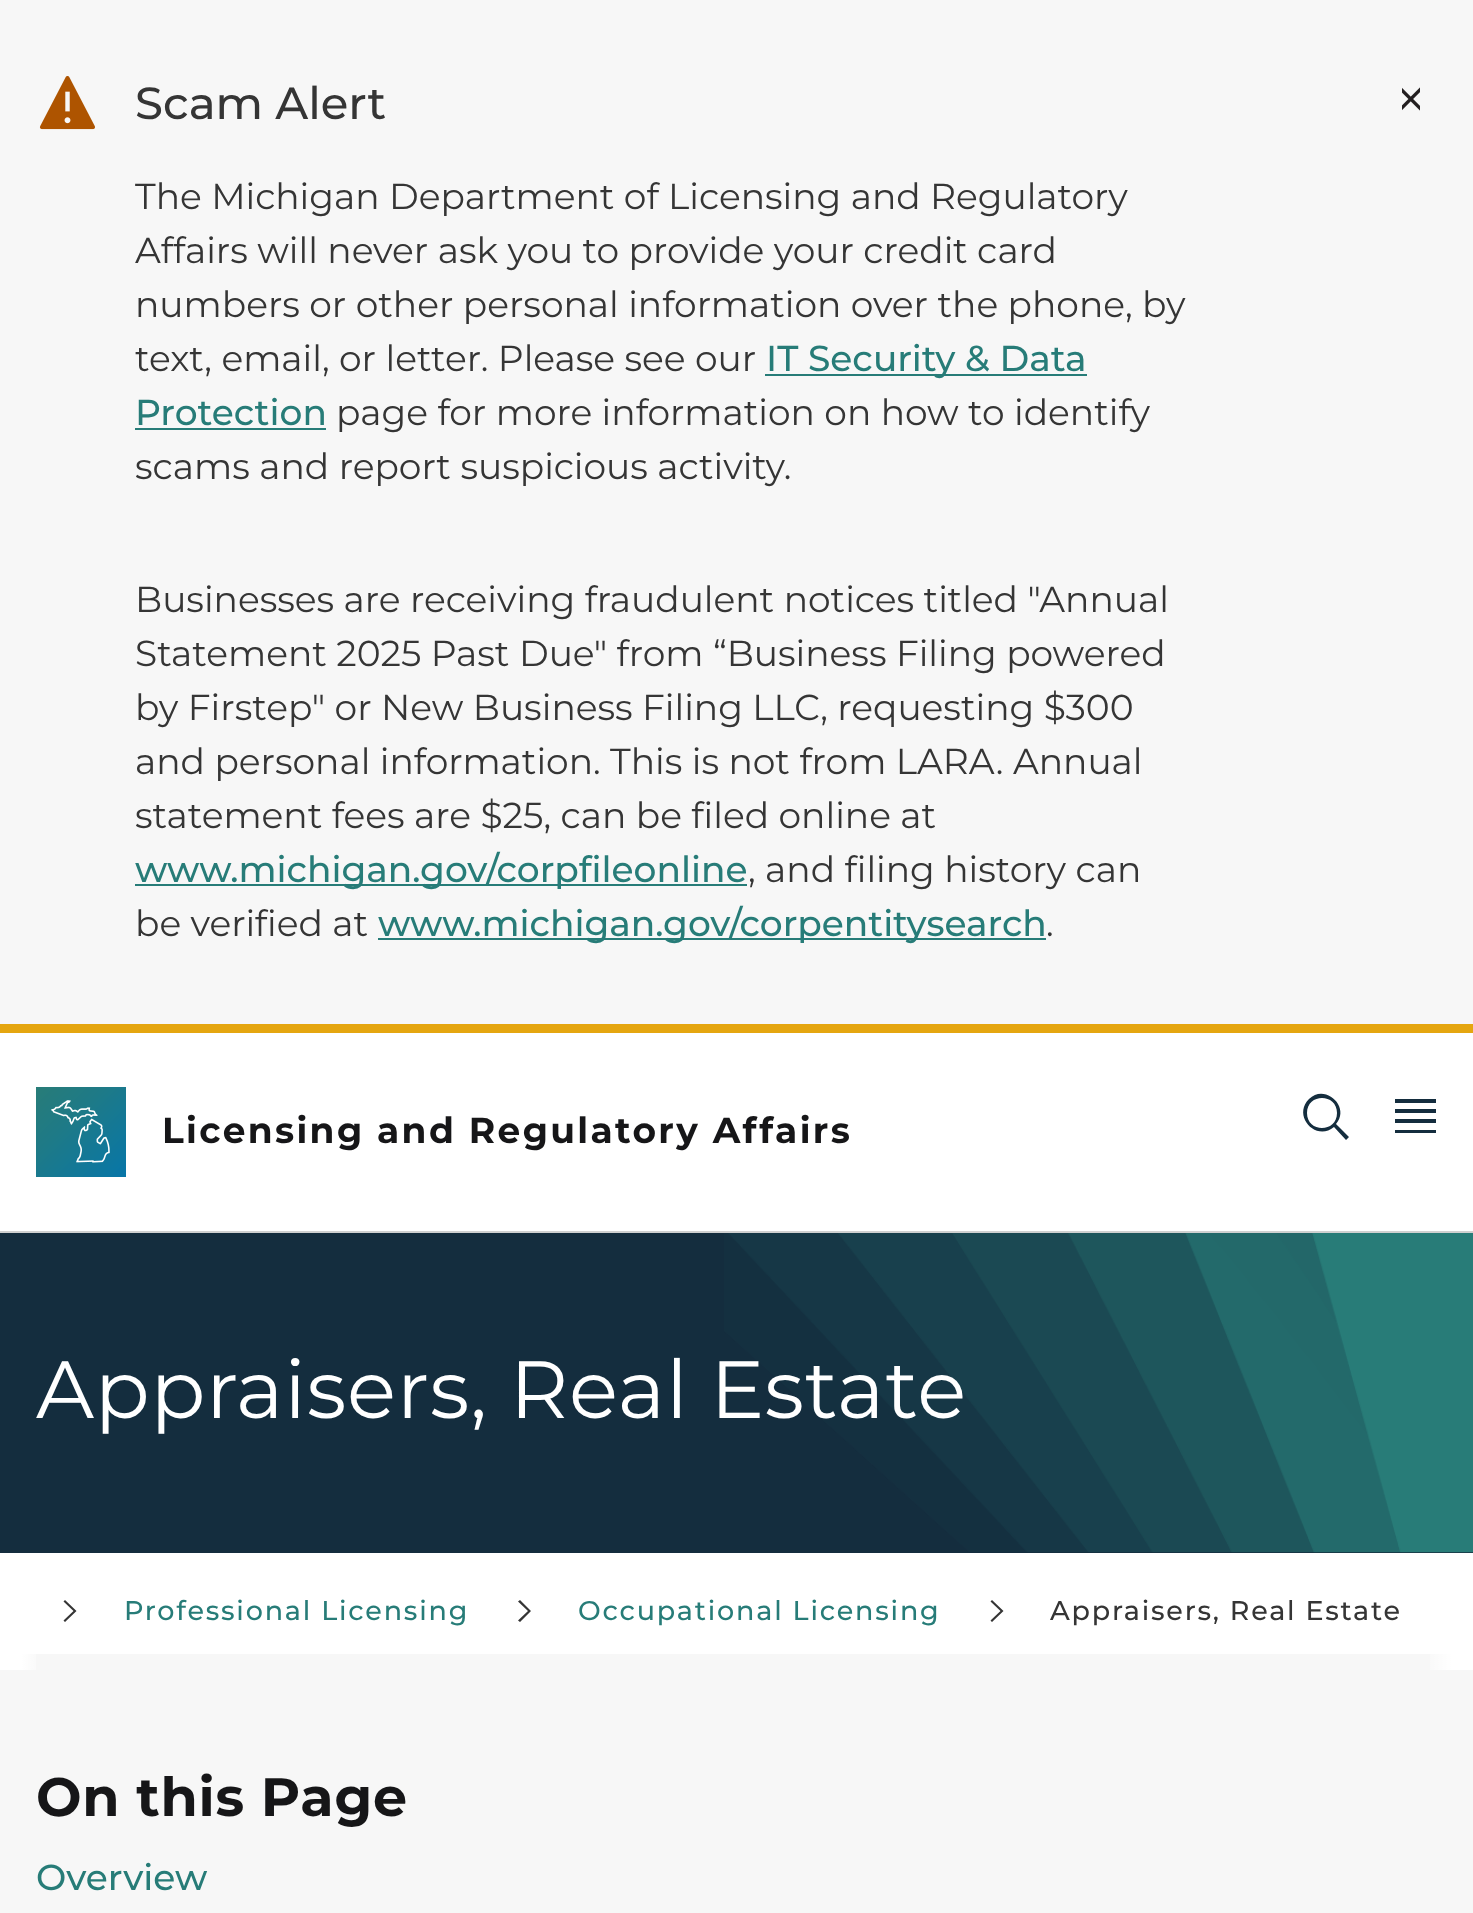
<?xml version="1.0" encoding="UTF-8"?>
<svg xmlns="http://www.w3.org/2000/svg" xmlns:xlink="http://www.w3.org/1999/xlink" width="1473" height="1913">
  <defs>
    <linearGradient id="g1" gradientUnits="userSpaceOnUse" x1="0" y1="1611" x2="54" y2="1611"><stop offset="0.4" stop-color="#ffffff" /><stop offset="0.8" stop-color="#ffffff" stop-opacity="0" /></linearGradient>
    <linearGradient id="g2" gradientUnits="userSpaceOnUse" x1="1420" y1="1611" x2="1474" y2="1611"><stop offset="0" stop-color="#ffffff" stop-opacity="0" /><stop offset="0.6" stop-color="#ffffff" /></linearGradient>
  </defs>
  <rect width="100%" height="100%" fill="#ffffff" />
  <rect width="1473" height="1024" fill="#f7f7f7" />
  <rect y="1024" width="1473" height="9" fill="#e5a610" />
  <image x="39" y="76" width="56" height="54" xlink:href="image1.png" />
  <rect x="765" y="374" width="322" height="2" fill="#277c78" />
  <rect x="135" y="428" width="191" height="2" fill="#277c78" />
  <rect x="135" y="884" width="612" height="2" fill="#277c78" />
  <rect x="378" y="938" width="668" height="2" fill="#277c78" />
  <image x="1402" y="87" width="18" height="24" xlink:href="image2.png" />
  <rect y="1231" width="1473" height="2" fill="#d0d0d0" />
  <image x="36" y="1087" width="90" height="90" xlink:href="image3.png" />
  <path d="M 1349 1137 l -13 -13 c 15 -17 -11 -41 -27 -25 c -17 17 7 43 25 28 l 12 13 z m -42 -24 c 0 -20 30 -20 30 0 c 0 20 -30 20 -30 0 z" fill="#142d3e" />
  <rect x="1395" y="1130" width="41" height="3" fill="#142d3e" />
  <rect x="1395" y="1109" width="41" height="4" fill="#142d3e" />
  <rect x="1395" y="1119" width="41" height="4" fill="#142d3e" />
  <rect x="1395" y="1099" width="41" height="4" fill="#142d3e" />
  <rect y="1233" width="1473" height="320" fill="#142d3e" />
  <image x="724" y="1233" width="749" height="320" xlink:href="image4.png" />
  <path d="M 76.5 1611 l -11.5 11 l -1.5 -1.5 l 10 -9.5 l -10 -9.5 l 1.5 -1.5 z" fill="#353535" />
  <path d="M 531 1611 l -11 11 l -2 -1.5 l 10 -9.5 l -10 -9.5 l 2 -1.5 z" fill="#353535" />
  <path d="M 1003.5 1611 l -11.5 11 l -1.5 -1.5 l 10 -9.5 l -10 -9.5 l 1.5 -1.5 z" fill="#353535" />
  <rect y="1654" width="1473" height="259" fill="#f7f7f7" />
  <rect y="1654" width="36" height="16" fill="url(#g1)" />
  <rect x="1430" y="1654" width="43" height="16" fill="url(#g2)" />
  <text x="135" y="119" style="font-family: Montserrat; font-size: 45px; font-weight: 500; fill: #353535">Scam Alert</text>
  <text x="135" y="209" style="font-family: Montserrat; font-size: 36px; fill: #353535">The Michigan Department of Licensing and Regulatory</text>
  <text x="135" y="263" style="font-family: Montserrat; font-size: 36px; fill: #353535">Affairs will never ask you to provide your credit card</text>
  <text x="135" y="317" style="font-family: Montserrat; font-size: 36px; fill: #353535">numbers or other personal information over the phone, by</text>
  <text x="135" y="371" style="font-family: Montserrat; font-size: 36px; fill: #353535">text, email, or letter. Please see our</text>
  <text x="766" y="371" style="font-family: Montserrat; font-size: 36px; font-weight: 500; fill: #277c78">IT Security &amp; Data</text>
  <text x="135" y="425" style="font-family: Montserrat; font-size: 36px; font-weight: 500; fill: #277c78">Protection</text>
  <text x="336" y="425" style="font-family: Montserrat; font-size: 36px; fill: #353535">page for more information on how to identify</text>
  <text x="135" y="479" style="font-family: Montserrat; font-size: 36px; fill: #353535">scams and report suspicious activity.</text>
  <text x="135" y="612" style="font-family: Montserrat; font-size: 36px; fill: #353535">Businesses are receiving fraudulent notices titled "Annual</text>
  <text x="135" y="666" style="font-family: Montserrat; font-size: 36px; fill: #353535">Statement 2025 Past Due" from “Business Filing powered</text>
  <text x="135" y="720" style="font-family: Montserrat; font-size: 36px; fill: #353535">by Firstep" or New Business Filing LLC, requesting $300</text>
  <text x="135" y="774" style="font-family: Montserrat; font-size: 36px; fill: #353535">and personal information. This is not from LARA. Annual</text>
  <text x="135" y="828" style="font-family: Montserrat; font-size: 36px; fill: #353535">statement fees are $25, can be filed online at</text>
  <text x="135" y="882" style="font-family: Montserrat; font-size: 36px; font-weight: 500; fill: #277c78">www.michigan.gov/corpfileonline</text>
  <text x="748" y="882" style="font-family: Montserrat; font-size: 36px; fill: #353535">, and filing history can</text>
  <text x="135" y="936" style="font-family: Montserrat; font-size: 36px; fill: #353535">be verified at</text>
  <text x="378" y="936" style="font-family: Montserrat; font-size: 36px; font-weight: 500; fill: #277c78">www.michigan.gov/corpentitysearch</text>
  <text x="1046" y="936" style="font-family: Montserrat; font-size: 36px; fill: #353535">.</text>
  <text x="162" y="1143" style="font-family: Montserrat; font-size: 36px; font-weight: bold; letter-spacing: 2.35px; fill: #161618">Licensing and Regulatory Affairs</text>
  <text x="36" y="1418" style="font-family: Montserrat; font-size: 81px; letter-spacing: 0.7px; fill: #ffffff">Appraisers, Real Estate</text>
  <text x="124" y="1620" style="font-family: Montserrat; font-size: 27px; font-weight: 500; letter-spacing: 1.8px; fill: #277c78">Professional Licensing</text>
  <text x="578" y="1620" style="font-family: Montserrat; font-size: 27px; font-weight: 500; letter-spacing: 1.8px; fill: #277c78">Occupational Licensing</text>
  <text x="1050" y="1620" style="font-family: Montserrat; font-size: 27px; font-weight: 500; letter-spacing: 1.8px; fill: #353535">Appraisers, Real Estate</text>
  <text x="36" y="1816" style="font-family: Montserrat; font-size: 54px; font-weight: bold; letter-spacing: 0.7px; fill: #161618">On this Page</text>
  <text x="36" y="1890" style="font-family: Montserrat; font-size: 36px; font-weight: 500; fill: #277c78">Overview</text>
</svg>
